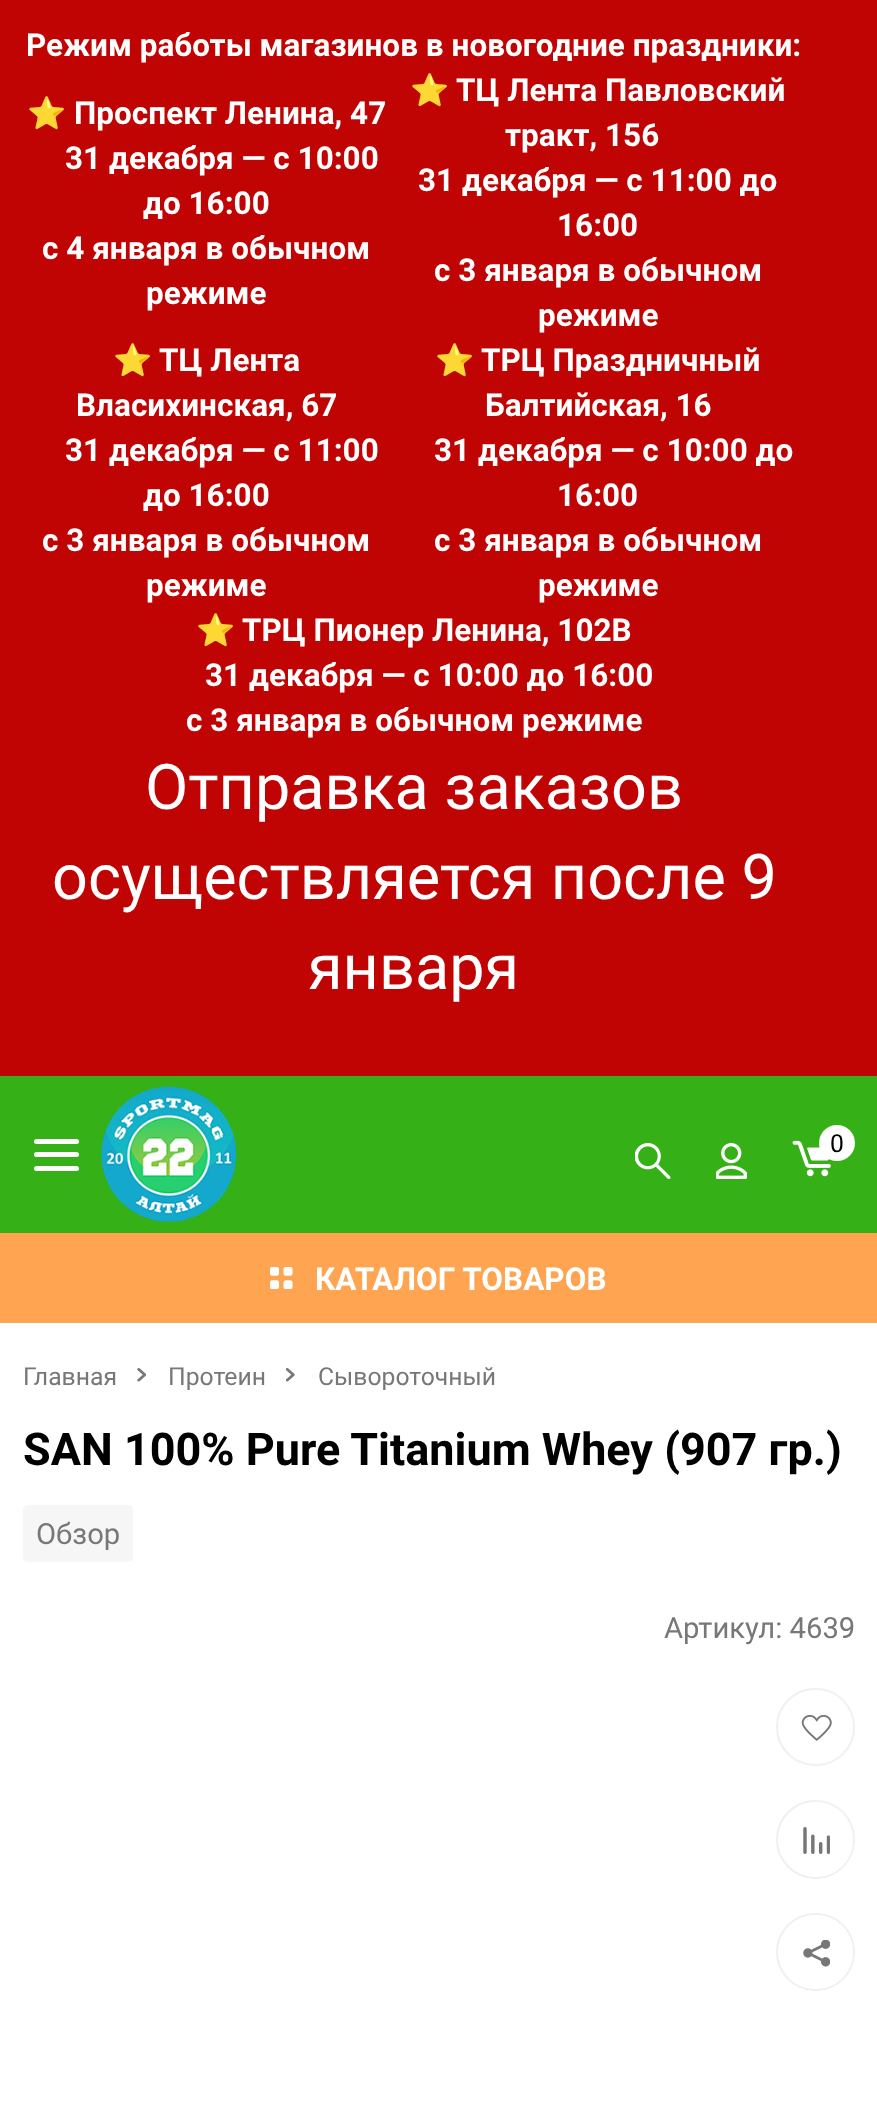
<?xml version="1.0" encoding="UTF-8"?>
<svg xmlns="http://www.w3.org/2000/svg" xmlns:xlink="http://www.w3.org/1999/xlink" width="877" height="2115">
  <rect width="100%" height="100%" fill="#ffffff" />
  <rect width="877" height="1076" fill="#c00303" />
  <rect y="1076" width="877" height="157" fill="#35b016" />
  <rect x="34" y="1152" width="45" height="5" rx="2.5" fill="#ffffff" />
  <rect x="34" y="1139" width="45" height="5" rx="2.5" fill="#ffffff" />
  <rect x="34" y="1166" width="45" height="5" rx="2.5" fill="#ffffff" />
  <image x="101" y="1086" width="136" height="136" xlink:href="image1.png" />
  <image x="635" y="1143" width="36" height="36" xlink:href="image2.png" />
  <image x="716" y="1143" width="31" height="36" xlink:href="image3.png" />
  <image x="792" y="1140" width="39" height="37" xlink:href="image4.png" />
  <circle cx="837" cy="1143" r="18" fill="#ffffff" />
  <rect y="1233" width="877" height="90" fill="#ffa552" />
  <image x="270" y="1267" width="23" height="22" xlink:href="image5.png" />
  <image x="137" y="1368" width="9" height="14" xlink:href="image6.png" />
  <image x="286" y="1368" width="9" height="14" xlink:href="image7.png" />
  <rect x="23" y="1505" width="110" height="57" rx="5" fill="#f6f6f6" />
  <rect x="777" y="1689" width="77" height="76" rx="38" fill="none" stroke="#f0f0f0" stroke-width="2" />
  <circle cx="816" cy="1727" r="37" fill="#ffffff" />
  <image x="801" y="1715" width="31" height="26" xlink:href="image8.png" />
  <circle cx="815.5" cy="1839.5" r="38.5" fill="none" stroke="#f0f0f0" stroke-width="2" />
  <rect x="779" y="1802" width="74" height="75" rx="37" fill="#ffffff" />
  <image x="803" y="1827" width="27" height="27" xlink:href="image9.png" />
  <rect x="777" y="1914" width="77" height="76" rx="38" fill="none" stroke="#f0f0f0" stroke-width="2" />
  <circle cx="816" cy="1952" r="37" fill="#ffffff" />
  <image x="803" y="1940" width="27" height="27" xlink:href="image10.png" />
  <text x="26" y="56" style="font-family: Roboto; font-size: 31.5px; font-weight: bold; fill: #ffffff">Режим работы магазинов в новогодние праздники:</text>
  <text x="27" y="124" style="font-family: Noto Color Emoji; font-size: 31.5px; font-weight: bold; fill: #ffffff">⭐️</text>
  <text x="74" y="124" style="font-family: Roboto; font-size: 31.5px; font-weight: bold; fill: #ffffff">Проспект Ленина, 47</text>
  <text x="65" y="169" style="font-family: Roboto; font-size: 31.5px; font-weight: bold; fill: #ffffff">31 декабря — с 10:00</text>
  <text x="143" y="214" style="font-family: Roboto; font-size: 31.5px; font-weight: bold; fill: #ffffff">до 16:00</text>
  <text x="42" y="259" style="font-family: Roboto; font-size: 31.5px; font-weight: bold; fill: #ffffff">с 4 января в обычном</text>
  <text x="146" y="304" style="font-family: Roboto; font-size: 31.5px; font-weight: bold; fill: #ffffff">режиме</text>
  <text x="410" y="101" style="font-family: Noto Color Emoji; font-size: 31.5px; font-weight: bold; fill: #ffffff">⭐️</text>
  <text x="456" y="101" style="font-family: Roboto; font-size: 31.5px; font-weight: bold; fill: #ffffff">ТЦ Лента Павловский</text>
  <text x="505" y="146" style="font-family: Roboto; font-size: 31.5px; font-weight: bold; fill: #ffffff">тракт, 156</text>
  <text x="418" y="191" style="font-family: Roboto; font-size: 31.5px; font-weight: bold; fill: #ffffff">31 декабря — с 11:00 до</text>
  <text x="557" y="236" style="font-family: Roboto; font-size: 31.5px; font-weight: bold; fill: #ffffff">16:00</text>
  <text x="434" y="281" style="font-family: Roboto; font-size: 31.5px; font-weight: bold; fill: #ffffff">с 3 января в обычном</text>
  <text x="538" y="326" style="font-family: Roboto; font-size: 31.5px; font-weight: bold; fill: #ffffff">режиме</text>
  <text x="113" y="371" style="font-family: Noto Color Emoji; font-size: 31.5px; font-weight: bold; fill: #ffffff">⭐️</text>
  <text x="159" y="371" style="font-family: Roboto; font-size: 31.5px; font-weight: bold; fill: #ffffff">ТЦ Лента</text>
  <text x="76" y="416" style="font-family: Roboto; font-size: 31.5px; font-weight: bold; fill: #ffffff">Власихинская, 67</text>
  <text x="65" y="461" style="font-family: Roboto; font-size: 31.5px; font-weight: bold; fill: #ffffff">31 декабря — с 11:00</text>
  <text x="143" y="506" style="font-family: Roboto; font-size: 31.5px; font-weight: bold; fill: #ffffff">до 16:00</text>
  <text x="42" y="551" style="font-family: Roboto; font-size: 31.5px; font-weight: bold; fill: #ffffff">с 3 января в обычном</text>
  <text x="146" y="596" style="font-family: Roboto; font-size: 31.5px; font-weight: bold; fill: #ffffff">режиме</text>
  <text x="435" y="371" style="font-family: Noto Color Emoji; font-size: 31.5px; font-weight: bold; fill: #ffffff">⭐️</text>
  <text x="481" y="371" style="font-family: Roboto; font-size: 31.5px; font-weight: bold; fill: #ffffff">ТРЦ Праздничный</text>
  <text x="485" y="416" style="font-family: Roboto; font-size: 31.5px; font-weight: bold; fill: #ffffff">Балтийская, 16</text>
  <text x="434" y="461" style="font-family: Roboto; font-size: 31.5px; font-weight: bold; fill: #ffffff">31 декабря — с 10:00 до</text>
  <text x="557" y="506" style="font-family: Roboto; font-size: 31.5px; font-weight: bold; fill: #ffffff">16:00</text>
  <text x="434" y="551" style="font-family: Roboto; font-size: 31.5px; font-weight: bold; fill: #ffffff">с 3 января в обычном</text>
  <text x="538" y="596" style="font-family: Roboto; font-size: 31.5px; font-weight: bold; fill: #ffffff">режиме</text>
  <text x="196" y="641" style="font-family: Noto Color Emoji; font-size: 31.5px; font-weight: bold; fill: #ffffff">⭐️</text>
  <text x="242" y="641" style="font-family: Roboto; font-size: 31.5px; font-weight: bold; fill: #ffffff">ТРЦ Пионер Ленина, 102В</text>
  <text x="205" y="686" style="font-family: Roboto; font-size: 31.5px; font-weight: bold; fill: #ffffff">31 декабря — с 10:00 до 16:00</text>
  <text x="186" y="731" style="font-family: Roboto; font-size: 31.5px; font-weight: bold; fill: #ffffff">с 3 января в обычном режиме</text>
  <text x="145" y="809" style="font-family: Roboto; font-size: 63px; fill: #ffffff">Отправка заказов</text>
  <text x="52" y="899" style="font-family: Roboto; font-size: 63px; fill: #ffffff">осуществляется после 9</text>
  <text x="308" y="989" style="font-family: Roboto; font-size: 63px; fill: #ffffff">января</text>
  <text x="830" y="1152" style="font-family: Roboto; font-size: 24.75px; fill: #000000">0</text>
  <text x="315" y="1290" style="font-family: Roboto; font-size: 31.5px; font-weight: bold; fill: #ffffff">КАТАЛОГ ТОВАРОВ</text>
  <text x="23" y="1385" style="font-family: Roboto; font-size: 24.75px; fill: #777777">Главная</text>
  <text x="168" y="1385" style="font-family: Roboto; font-size: 24.75px; fill: #777777">Протеин</text>
  <text x="318" y="1385" style="font-family: Roboto; font-size: 24.75px; fill: #777777">Сывороточный</text>
  <text x="23" y="1465" style="font-family: Roboto; font-size: 45px; font-weight: bold; fill: #000000">SAN 100% Pure Titanium Whey (907 гр.)</text>
  <text x="36" y="1544" style="font-family: Roboto; font-size: 29.25px; fill: #777777">Обзор</text>
  <text x="664" y="1638" style="font-family: Roboto; font-size: 29.25px; fill: #777777">Артикул: 4639</text>
</svg>
